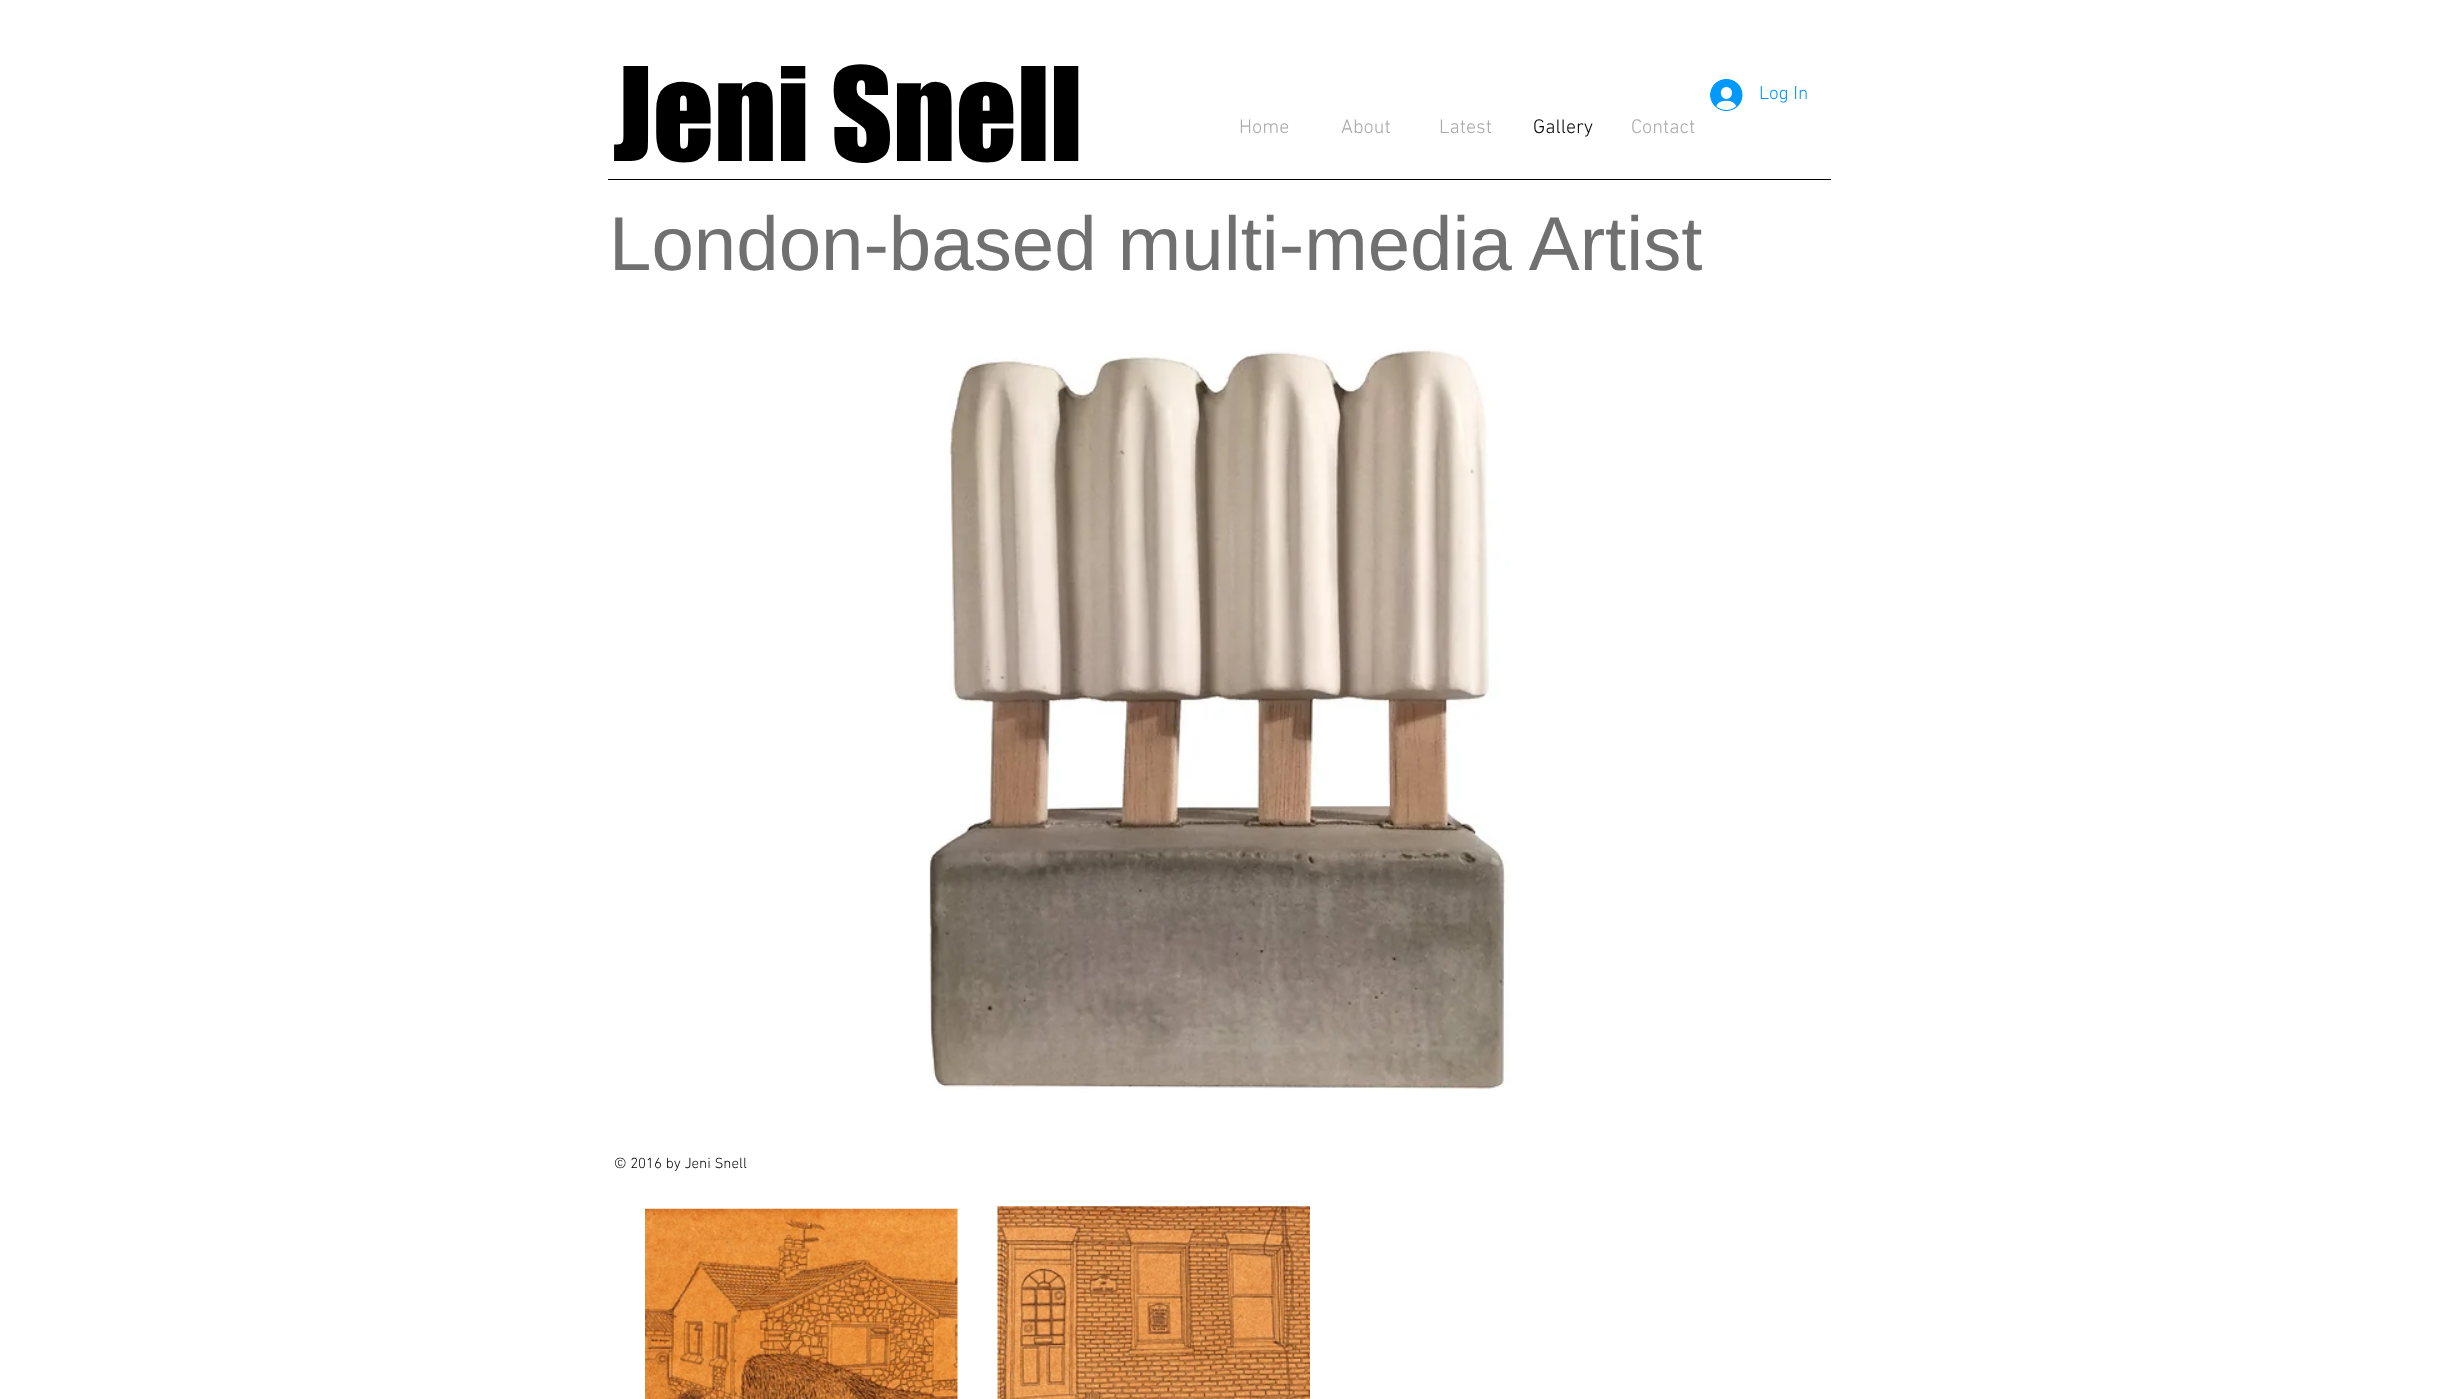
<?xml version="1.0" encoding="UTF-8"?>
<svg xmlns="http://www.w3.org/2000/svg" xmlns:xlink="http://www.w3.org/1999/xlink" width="2451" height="1399">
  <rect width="100%" height="100%" fill="#ffffff" />
  <image x="1710" y="79" width="33" height="32" xlink:href="image1.png" />
  <rect x="608" y="179" width="1223" height="1" fill="#000000" />
  <image x="929" y="349" width="582" height="741" xlink:href="image2.png" />
  <image x="645" y="1208" width="313" height="191" xlink:href="image3.png" />
  <image x="997" y="1206" width="313" height="193" xlink:href="image4.png" />
  <text x="613" y="161" style="font-family: 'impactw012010'; font-size: 120px; fill: #000000">Jeni Snell</text>
  <text x="1759" y="99" style="font-family: 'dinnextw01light'; font-size: 19px; font-weight: 300; fill: #0099ff">Log In</text>
  <text x="1239" y="133" style="font-family: 'dinnextw01light'; font-size: 20px; font-weight: 300; fill: #aaa8a8">Home</text>
  <text x="1341" y="133" style="font-family: 'dinnextw01light'; font-size: 20px; font-weight: 300; fill: #aaa8a8">About</text>
  <text x="1439" y="133" style="font-family: 'dinnextw01light'; font-size: 20px; font-weight: 300; fill: #aaa8a8">Latest</text>
  <text x="1533" y="133" style="font-family: 'dinnextw01light'; font-size: 20px; font-weight: 300; fill: #000000">Gallery</text>
  <text x="1631" y="133" style="font-family: 'dinnextw01light'; font-size: 20px; font-weight: 300; fill: #aaa8a8">Contact</text>
  <text x="609" y="270" style="font-family: Liberation Sans; font-size: 76.25px; fill: #717070">London-based multi-media Artist</text>
  <text x="614" y="1168" style="font-family: 'dinnextw01light'; font-size: 15px; font-weight: 300; fill: #000000">© 2016 by Jeni Snell</text>
</svg>
